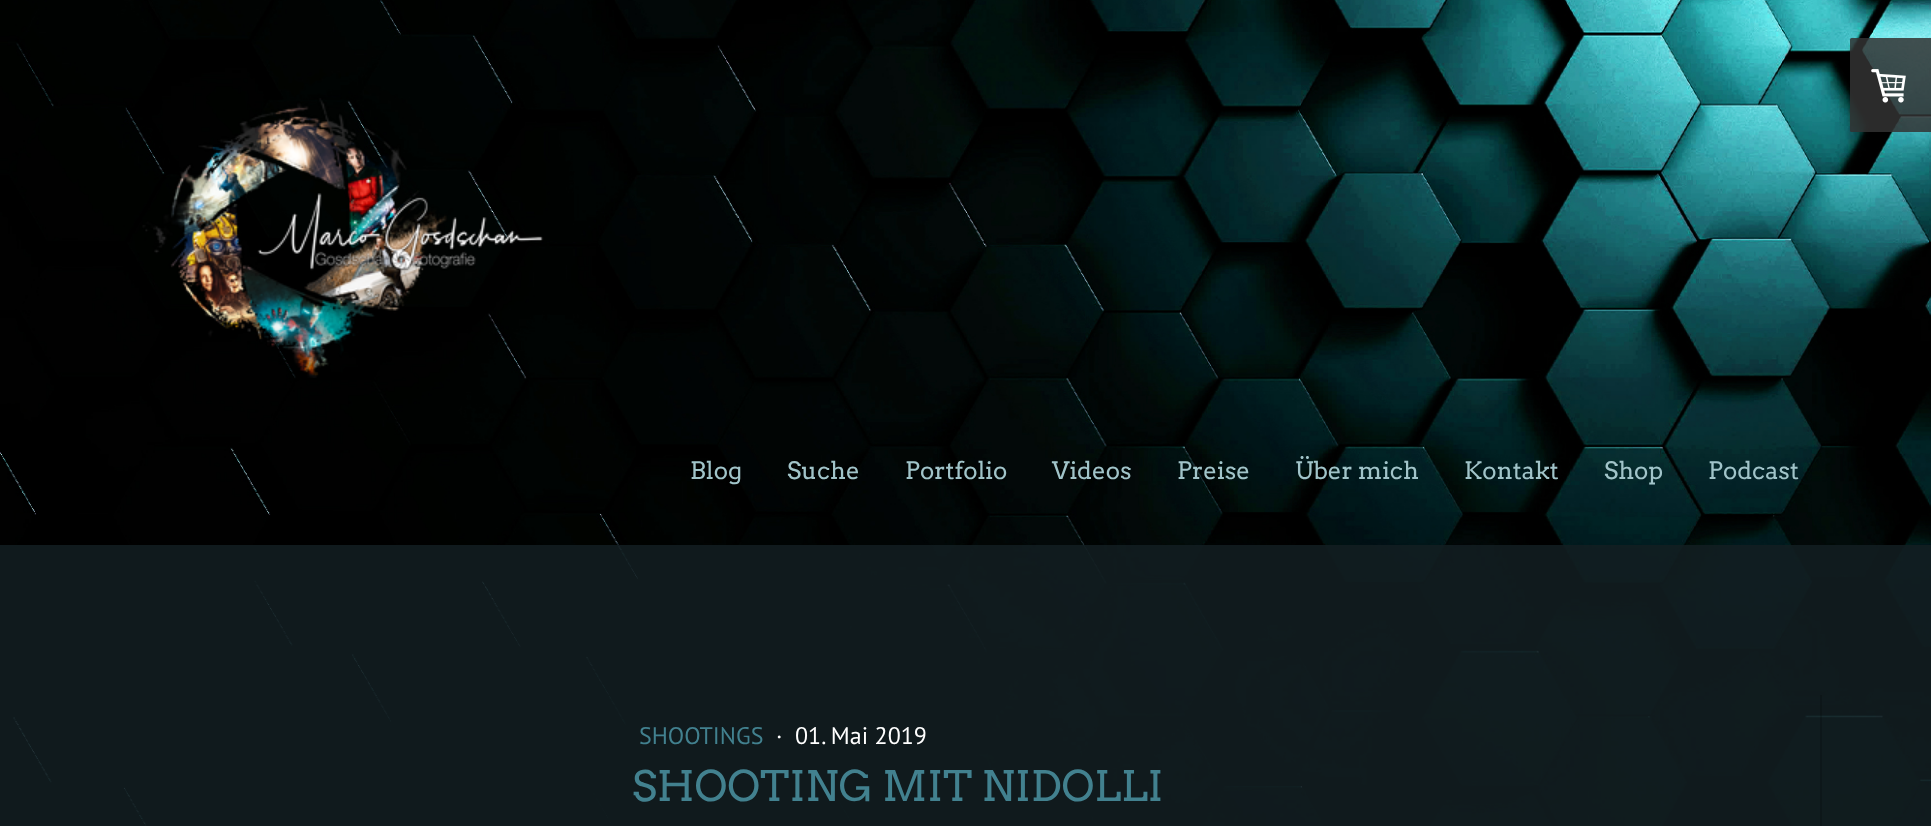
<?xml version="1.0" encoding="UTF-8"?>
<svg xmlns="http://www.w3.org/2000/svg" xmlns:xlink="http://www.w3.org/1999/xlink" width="1931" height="826">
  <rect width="100%" height="100%" fill="#ffffff" />
  <image x="0" y="0" width="1931" height="826" xlink:href="image1.png" />
  <rect x="1850" y="38" width="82" height="94" rx="1.5" fill="#333333" fill-opacity="0.85" />
  <image x="1871" y="69" width="35" height="34" xlink:href="image2.png" />
  <image x="142" y="98" width="402" height="280" xlink:href="image3.png" />
  <rect y="545" width="1931" height="281" fill="#131e22" fill-opacity="0.86" />
  <rect x="1820" y="695" width="2" height="131" fill="#000000" fill-opacity="0.15" />
  <text x="690" y="479" style="font-family: Arvo; font-size: 24px; fill: #a1c4c9">Blog</text>
  <text x="787" y="479" style="font-family: Arvo; font-size: 24px; fill: #a1c4c9">Suche</text>
  <text x="905" y="479" style="font-family: Arvo; font-size: 24px; fill: #a1c4c9">Portfolio</text>
  <text x="1052" y="479" style="font-family: Arvo; font-size: 24px; fill: #a1c4c9">Videos</text>
  <text x="1177" y="479" style="font-family: Arvo; font-size: 24px; fill: #a1c4c9">Preise</text>
  <text x="1295" y="479" style="font-family: Arvo; font-size: 24px; fill: #a1c4c9">Über mich</text>
  <text x="1464" y="479" style="font-family: Arvo; font-size: 24px; fill: #a1c4c9">Kontakt</text>
  <text x="1604" y="479" style="font-family: Arvo; font-size: 24px; fill: #a1c4c9">Shop</text>
  <text x="1708" y="479" style="font-family: Arvo; font-size: 24px; fill: #a1c4c9">Podcast</text>
  <text x="639" y="744" style="font-family: PT Sans; font-size: 24px; fill: #42818f">SHOOTINGS</text>
  <text x="776" y="744" style="font-family: PT Sans; font-size: 24px; fill: #ffffff">·</text>
  <text x="795" y="744" style="font-family: PT Sans; font-size: 24px; fill: #ffffff">01. Mai 2019</text>
  <text x="632" y="801" style="font-family: Arvo; font-size: 42px; fill: #42818f">SHOOTING MIT NIDOLLI</text>
</svg>
